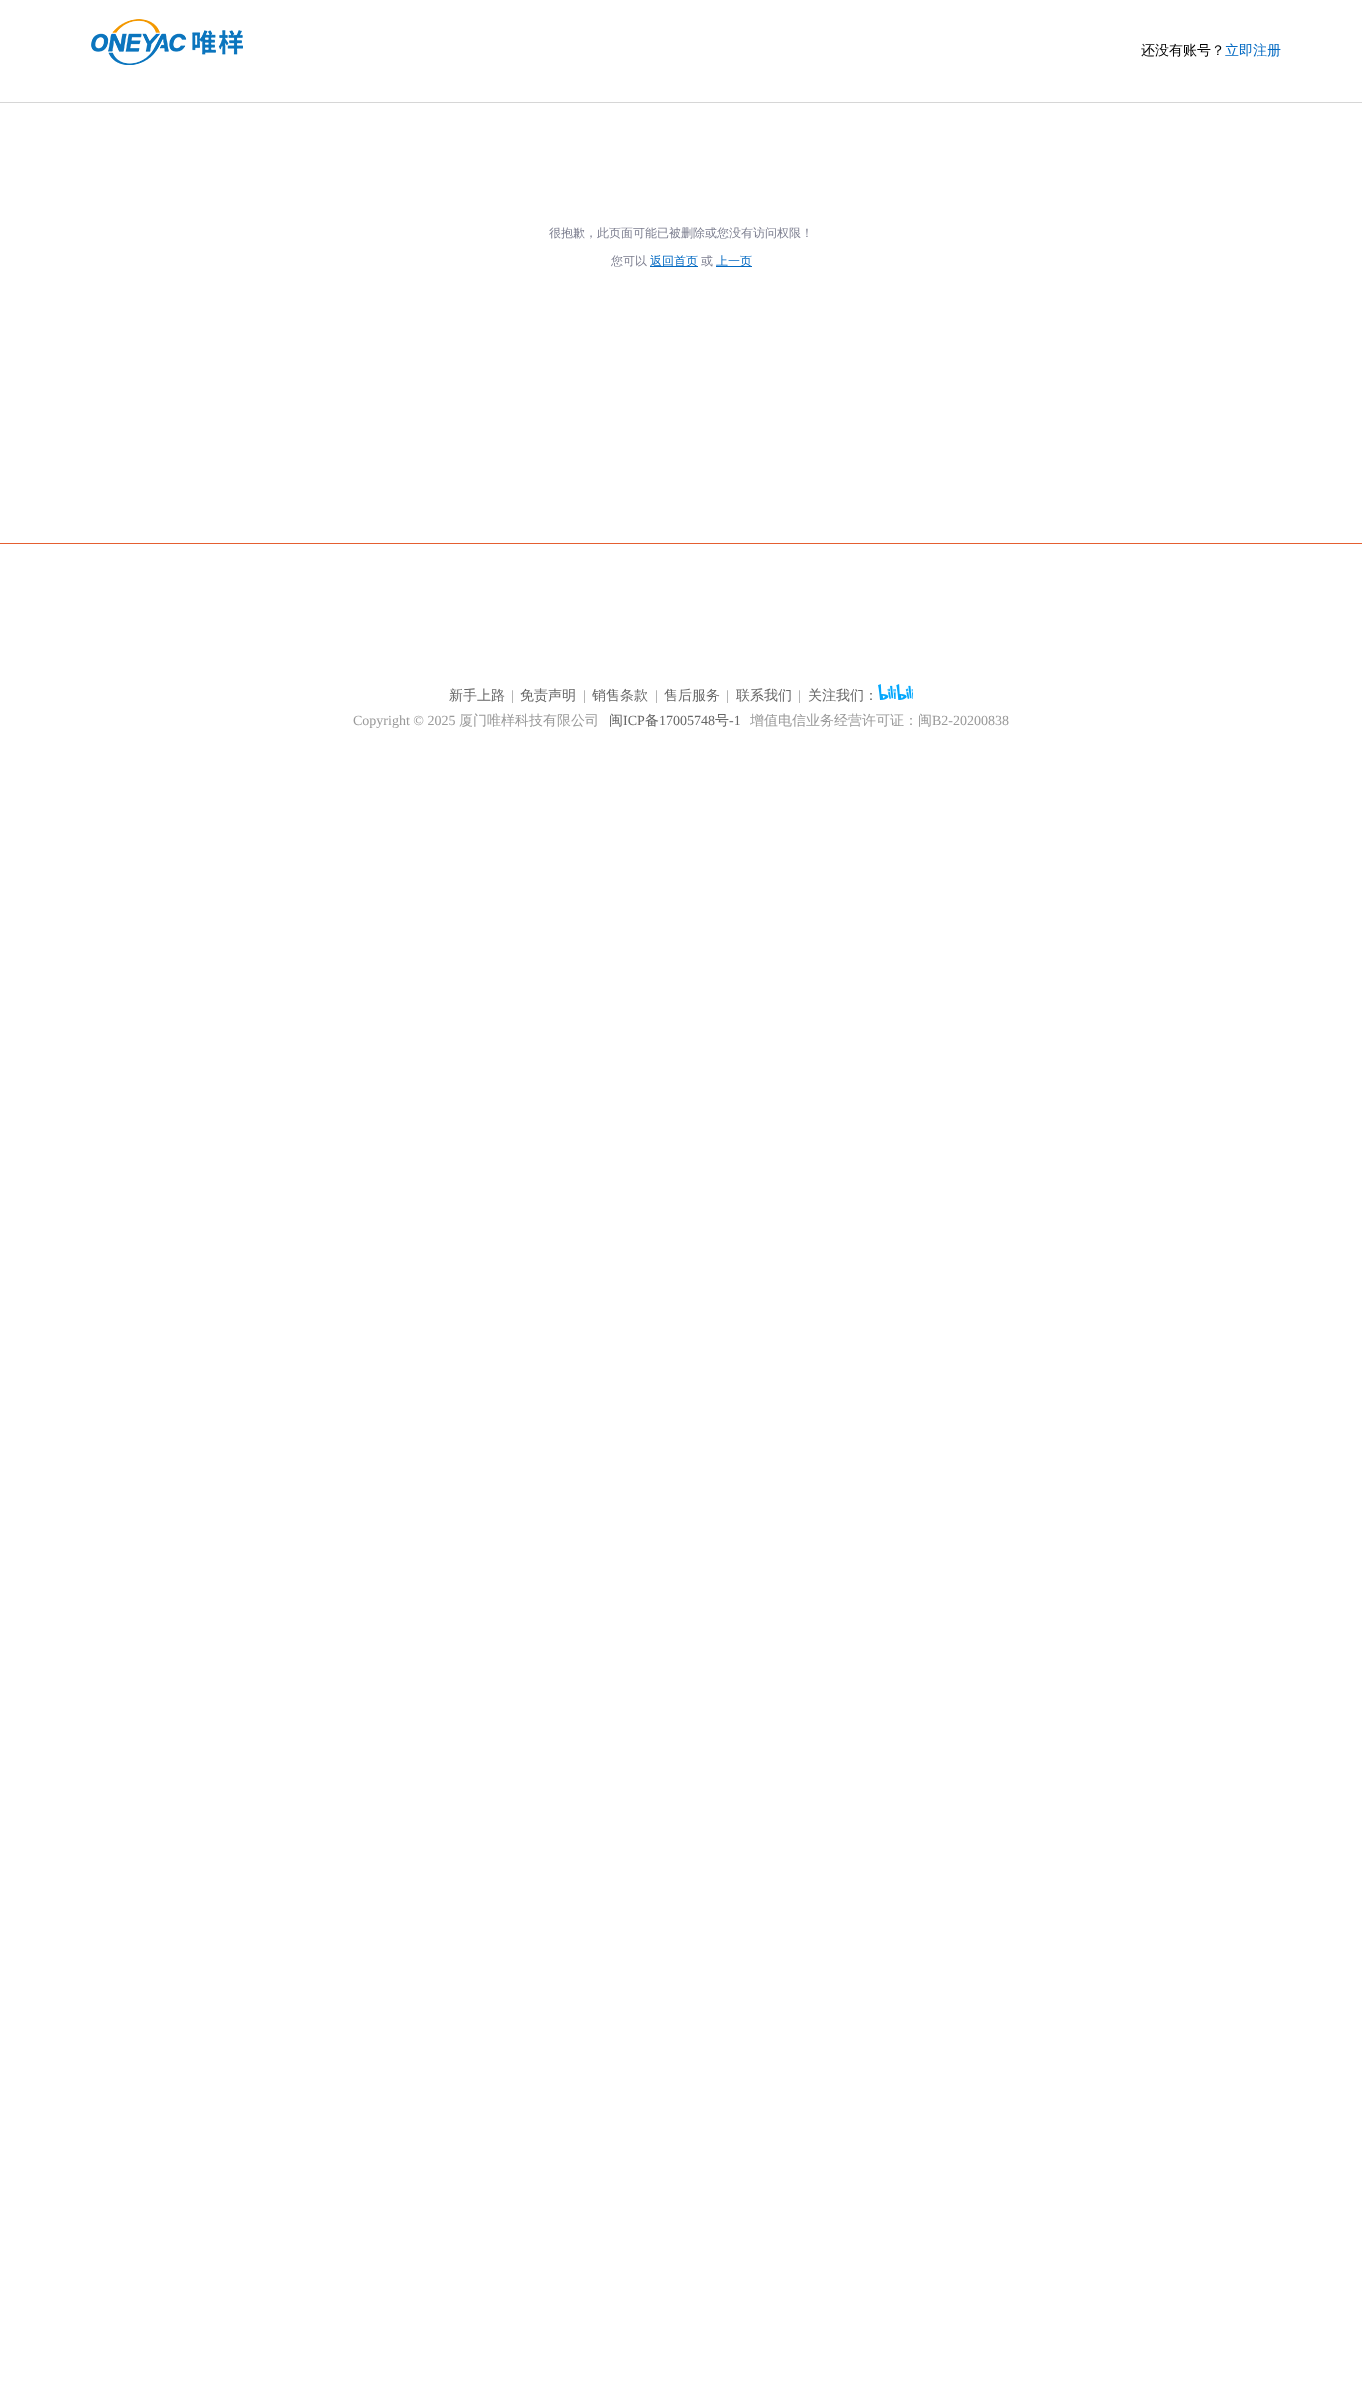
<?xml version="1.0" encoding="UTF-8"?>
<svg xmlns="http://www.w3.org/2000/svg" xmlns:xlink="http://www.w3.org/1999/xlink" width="1362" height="2387">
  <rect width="100%" height="100%" fill="#ffffff" />
  <rect y="102" width="1362" height="1" fill="#d6d6d6" />
  <image x="91" y="19" width="152" height="46" xlink:href="image1.png" />
  <rect x="650" y="266" width="48" height="1" fill="#0269c2" />
  <rect x="716" y="266" width="36" height="1" fill="#0269c2" />
  <rect y="543" width="1362" height="1" fill="#e55e30" />
  <image x="878" y="684" width="35" height="16" xlink:href="image2.png" />
  <text x="1141" y="55" style="font-family: WenQuanYi Zen Hei; font-size: 14px; font-weight: 500; fill: #000000">还没有账号？</text>
  <text x="1225" y="55" style="font-family: WenQuanYi Zen Hei; font-size: 14px; font-weight: 500; fill: #0269c2">立即注册</text>
  <text x="549" y="237" style="font-family: WenQuanYi Zen Hei; font-size: 12px; font-weight: 500; fill: #7c7e8f">很抱歉，此页面可能已被删除或您没有访问权限！</text>
  <text x="611" y="265" style="font-family: WenQuanYi Zen Hei; font-size: 12px; font-weight: 500; fill: #7c7e8f">您可以</text>
  <text x="650" y="265" style="font-family: WenQuanYi Zen Hei; font-size: 12px; font-weight: 500; fill: #0269c2">返回首页</text>
  <text x="701" y="265" style="font-family: WenQuanYi Zen Hei; font-size: 12px; font-weight: 500; fill: #7c7e8f">或</text>
  <text x="716" y="265" style="font-family: WenQuanYi Zen Hei; font-size: 12px; font-weight: 500; fill: #0269c2">上一页</text>
  <text x="449" y="700" style="font-family: WenQuanYi Zen Hei; font-size: 14px; font-weight: 500; fill: #666666">新手上路</text>
  <text x="511" y="700" style="font-family: Liberation Serif; font-size: 14px; fill: #999999">|</text>
  <text x="520" y="700" style="font-family: WenQuanYi Zen Hei; font-size: 14px; font-weight: 500; fill: #666666">免责声明</text>
  <text x="583" y="700" style="font-family: Liberation Serif; font-size: 14px; fill: #999999">|</text>
  <text x="592" y="700" style="font-family: WenQuanYi Zen Hei; font-size: 14px; font-weight: 500; fill: #666666">销售条款</text>
  <text x="655" y="700" style="font-family: Liberation Serif; font-size: 14px; fill: #999999">|</text>
  <text x="664" y="700" style="font-family: WenQuanYi Zen Hei; font-size: 14px; font-weight: 500; fill: #666666">售后服务</text>
  <text x="726" y="700" style="font-family: Liberation Serif; font-size: 14px; fill: #999999">|</text>
  <text x="736" y="700" style="font-family: WenQuanYi Zen Hei; font-size: 14px; font-weight: 500; fill: #666666">联系我们</text>
  <text x="798" y="700" style="font-family: Liberation Serif; font-size: 14px; fill: #999999">|</text>
  <text x="808" y="700" style="font-family: WenQuanYi Zen Hei; font-size: 14px; font-weight: 500; fill: #666666">关注我们：</text>
  <text x="353" y="725" style="font-family: Liberation Serif; font-size: 14px; fill: #999999">Copyright © 2025</text>
  <text x="459" y="725" style="font-family: WenQuanYi Zen Hei; font-size: 14px; font-weight: 500; fill: #999999">厦门唯样科技有限公司</text>
  <text x="609" y="725" style="font-family: WenQuanYi Zen Hei; font-size: 14px; font-weight: 500; fill: #666666">闽</text>
  <text x="623" y="725" style="font-family: Liberation Serif; font-size: 14px; fill: #666666">ICP</text>
  <text x="645" y="725" style="font-family: WenQuanYi Zen Hei; font-size: 14px; font-weight: 500; fill: #666666">备</text>
  <text x="659" y="725" style="font-family: Liberation Serif; font-size: 14px; fill: #666666">17005748</text>
  <text x="715" y="725" style="font-family: WenQuanYi Zen Hei; font-size: 14px; font-weight: 500; fill: #666666">号</text>
  <text x="729" y="725" style="font-family: Liberation Serif; font-size: 14px; fill: #666666">-1</text>
  <text x="750" y="725" style="font-family: WenQuanYi Zen Hei; font-size: 14px; font-weight: 500; fill: #999999">增值电信业务经营许可证：闽</text>
  <text x="932" y="725" style="font-family: Liberation Serif; font-size: 14px; fill: #999999">B2-20200838</text>
</svg>
